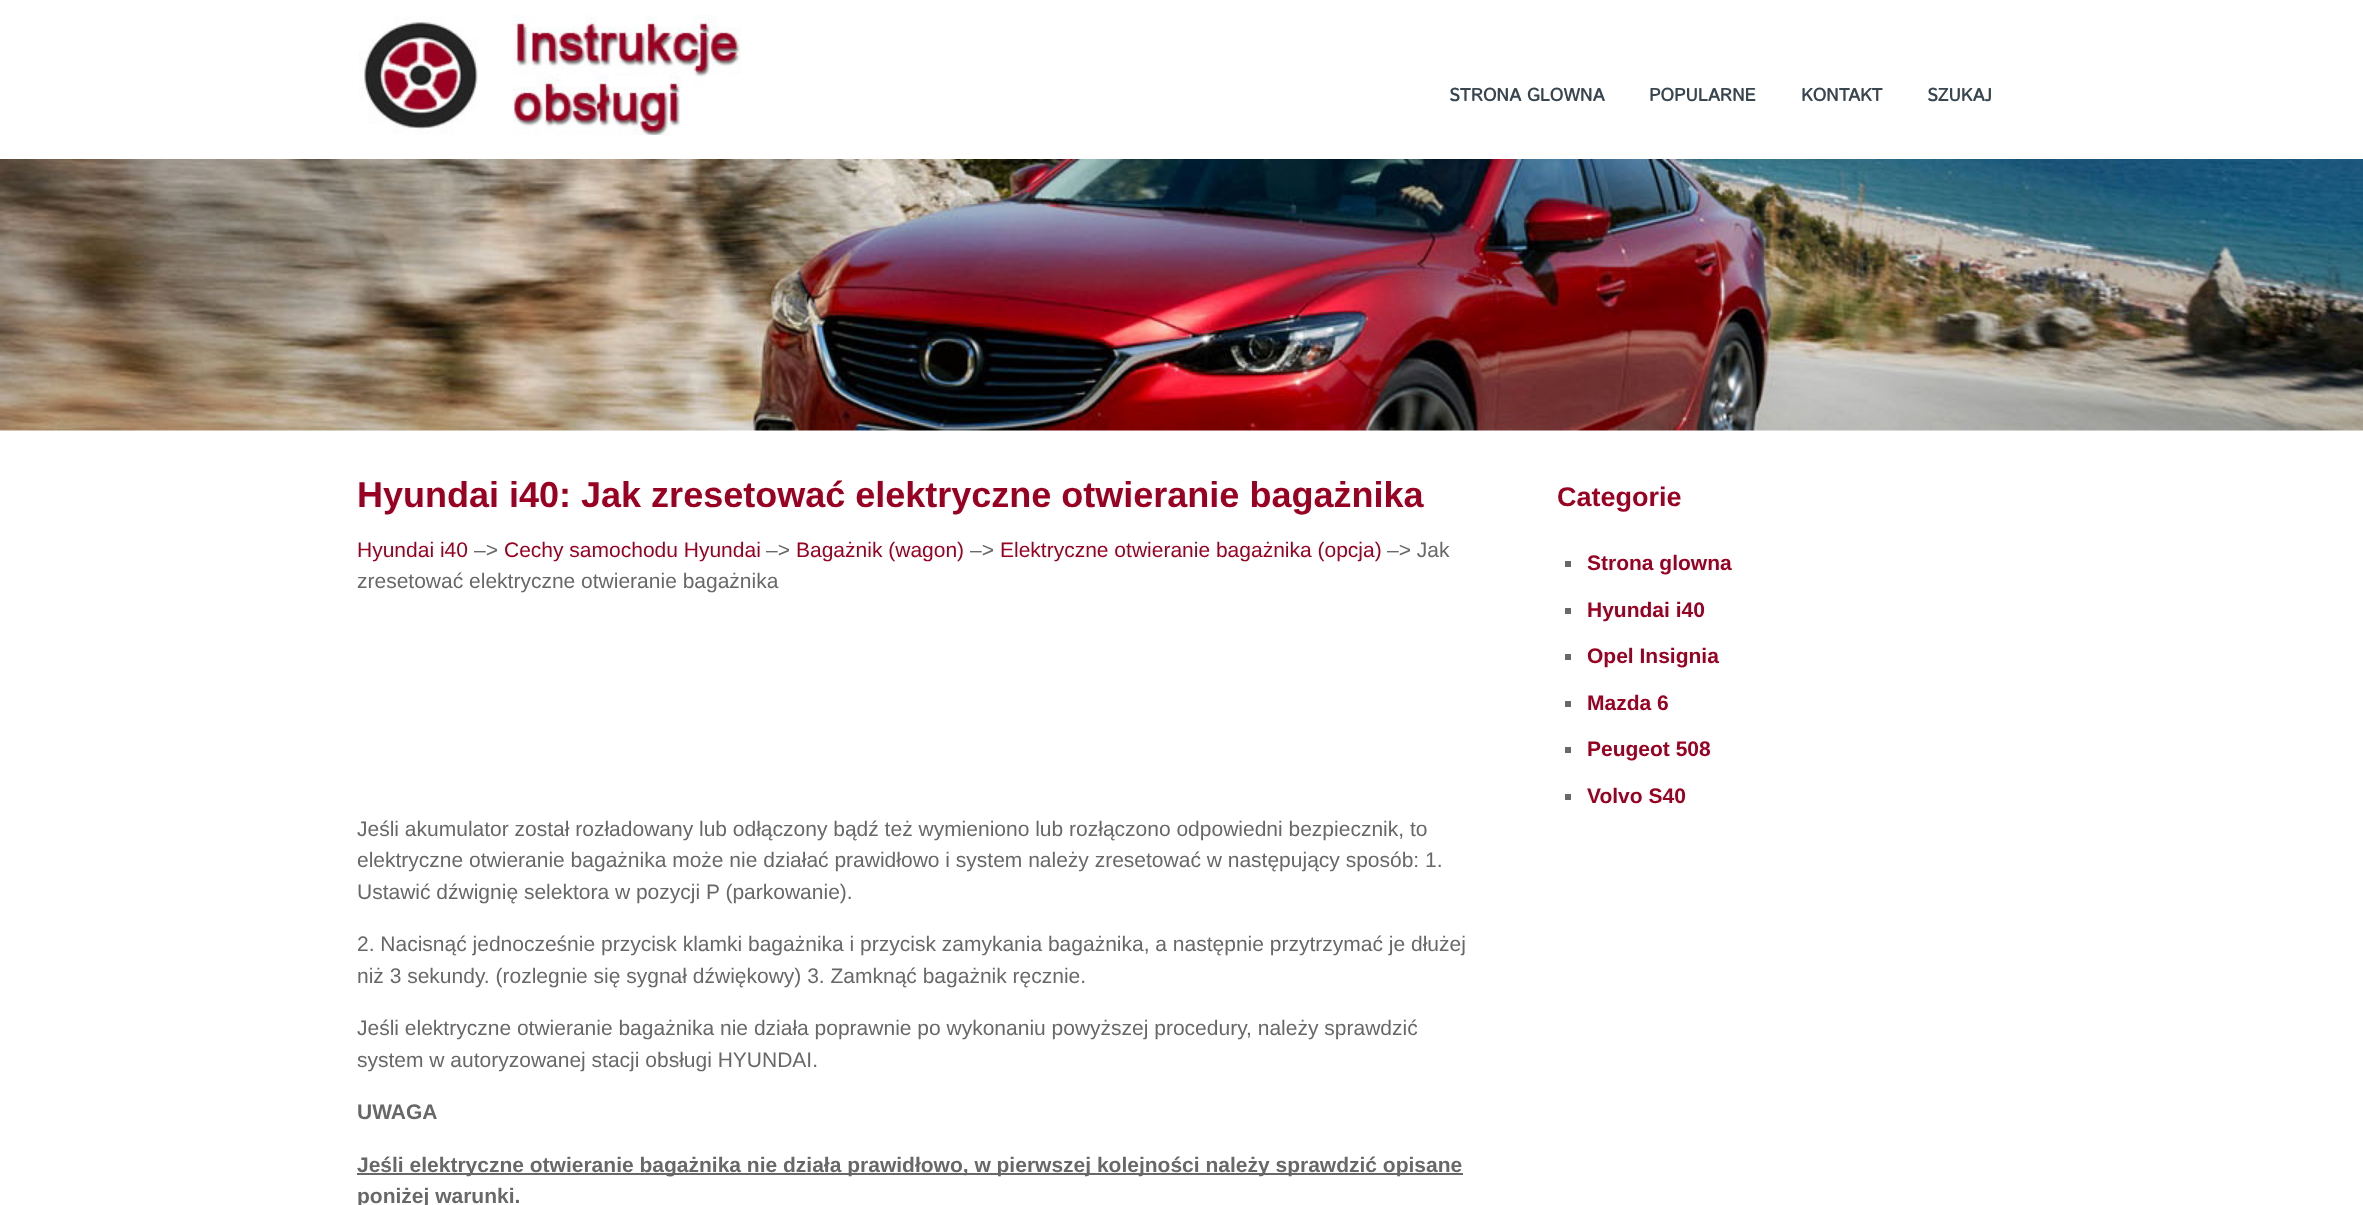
<?xml version="1.0" encoding="UTF-8"?>
<svg xmlns="http://www.w3.org/2000/svg" xmlns:xlink="http://www.w3.org/1999/xlink" width="2363" height="1205">
  <rect width="100%" height="100%" fill="#ffffff" />
  <image x="359" y="15" width="382" height="120" xlink:href="image1.png" />
  <image x="0" y="159" width="2363" height="272" xlink:href="image2.png" />
  <rect x="357" y="1173" width="1106" height="2" fill="#686868" />
  <rect x="1565" y="561" width="6" height="6" fill="#686868" />
  <rect x="1565" y="608" width="6" height="6" fill="#686868" />
  <rect x="1565" y="654" width="6" height="6" fill="#686868" />
  <rect x="1565" y="701" width="6" height="6" fill="#686868" />
  <rect x="1565" y="747" width="6" height="6" fill="#686868" />
  <rect x="1565" y="794" width="6" height="6" fill="#686868" />
  <text x="1449" y="101" style="font-family: Istok Web; font-size: 18px; font-weight: bold; fill: #39464f">STRONA GLOWNA</text>
  <text x="1649" y="101" style="font-family: Istok Web; font-size: 18px; font-weight: bold; fill: #39464f">POPULARNE</text>
  <text x="1801" y="101" style="font-family: Istok Web; font-size: 18px; font-weight: bold; fill: #39464f">KONTAKT</text>
  <text x="1927" y="101" style="font-family: Istok Web; font-size: 18px; font-weight: bold; fill: #39464f">SZUKAJ</text>
  <text x="357" y="507" style="font-family: Liberation Sans; font-size: 36px; font-weight: bold; fill: #990021">Hyundai i40: Jak zresetować elektryczne otwieranie bagażnika</text>
  <text x="357" y="557" style="font-family: Liberation Sans; font-size: 21px; fill: #990021">Hyundai i40</text>
  <text x="474" y="557" style="font-family: Liberation Sans; font-size: 21px; fill: #686868">–&gt;</text>
  <text x="504" y="557" style="font-family: Liberation Sans; font-size: 21px; fill: #990021">Cechy samochodu Hyundai</text>
  <text x="766" y="557" style="font-family: Liberation Sans; font-size: 21px; fill: #686868">–&gt;</text>
  <text x="796" y="557" style="font-family: Liberation Sans; font-size: 21px; fill: #990021">Bagażnik (wagon)</text>
  <text x="970" y="557" style="font-family: Liberation Sans; font-size: 21px; fill: #686868">–&gt;</text>
  <text x="1000" y="557" style="font-family: Liberation Sans; font-size: 21px; fill: #990021">Elektryczne otwieranie bagażnika (opcja)</text>
  <text x="1387" y="557" style="font-family: Liberation Sans; font-size: 21px; fill: #686868">–&gt; Jak</text>
  <text x="357" y="588" style="font-family: Liberation Sans; font-size: 21px; fill: #686868">zresetować elektryczne otwieranie bagażnika</text>
  <text x="357" y="836" style="font-family: Liberation Sans; font-size: 21px; fill: #686868">Jeśli akumulator został rozładowany lub odłączony bądź też wymieniono lub rozłączono odpowiedni bezpiecznik, to</text>
  <text x="357" y="867" style="font-family: Liberation Sans; font-size: 21px; fill: #686868">elektryczne otwieranie bagażnika może nie działać prawidłowo i system należy zresetować w następujący sposób: 1.</text>
  <text x="357" y="899" style="font-family: Liberation Sans; font-size: 21px; fill: #686868">Ustawić dźwignię selektora w pozycji P (parkowanie).</text>
  <text x="357" y="951" style="font-family: Liberation Sans; font-size: 21px; fill: #686868">2. Nacisnąć jednocześnie przycisk klamki bagażnika i przycisk zamykania bagażnika, a następnie przytrzymać je dłużej</text>
  <text x="357" y="983" style="font-family: Liberation Sans; font-size: 21px; fill: #686868">niż 3 sekundy. (rozlegnie się sygnał dźwiękowy) 3. Zamknąć bagażnik ręcznie.</text>
  <text x="357" y="1035" style="font-family: Liberation Sans; font-size: 21px; fill: #686868">Jeśli elektryczne otwieranie bagażnika nie działa poprawnie po wykonaniu powyższej procedury, należy sprawdzić</text>
  <text x="357" y="1067" style="font-family: Liberation Sans; font-size: 21px; fill: #686868">system w autoryzowanej stacji obsługi HYUNDAI.</text>
  <text x="357" y="1119" style="font-family: Liberation Sans; font-size: 21px; font-weight: bold; fill: #686868">UWAGA</text>
  <text x="357" y="1172" style="font-family: Liberation Sans; font-size: 21px; font-weight: bold; fill: #686868">Jeśli elektryczne otwieranie bagażnika nie działa prawidłowo, w pierwszej kolejności należy sprawdzić opisane</text>
  <text x="357" y="1203" style="font-family: Liberation Sans; font-size: 21px; font-weight: bold; fill: #686868">poniżej warunki.</text>
  <text x="1557" y="506" style="font-family: Liberation Sans; font-size: 27px; font-weight: bold; fill: #990021">Categorie</text>
  <text x="1587" y="570" style="font-family: Liberation Sans; font-size: 21px; font-weight: bold; fill: #990021">Strona glowna</text>
  <text x="1587" y="617" style="font-family: Liberation Sans; font-size: 21px; font-weight: bold; fill: #990021">Hyundai i40</text>
  <text x="1587" y="663" style="font-family: Liberation Sans; font-size: 21px; font-weight: bold; fill: #990021">Opel Insignia</text>
  <text x="1587" y="710" style="font-family: Liberation Sans; font-size: 21px; font-weight: bold; fill: #990021">Mazda 6</text>
  <text x="1587" y="756" style="font-family: Liberation Sans; font-size: 21px; font-weight: bold; fill: #990021">Peugeot 508</text>
  <text x="1587" y="803" style="font-family: Liberation Sans; font-size: 21px; font-weight: bold; fill: #990021">Volvo S40</text>
</svg>
